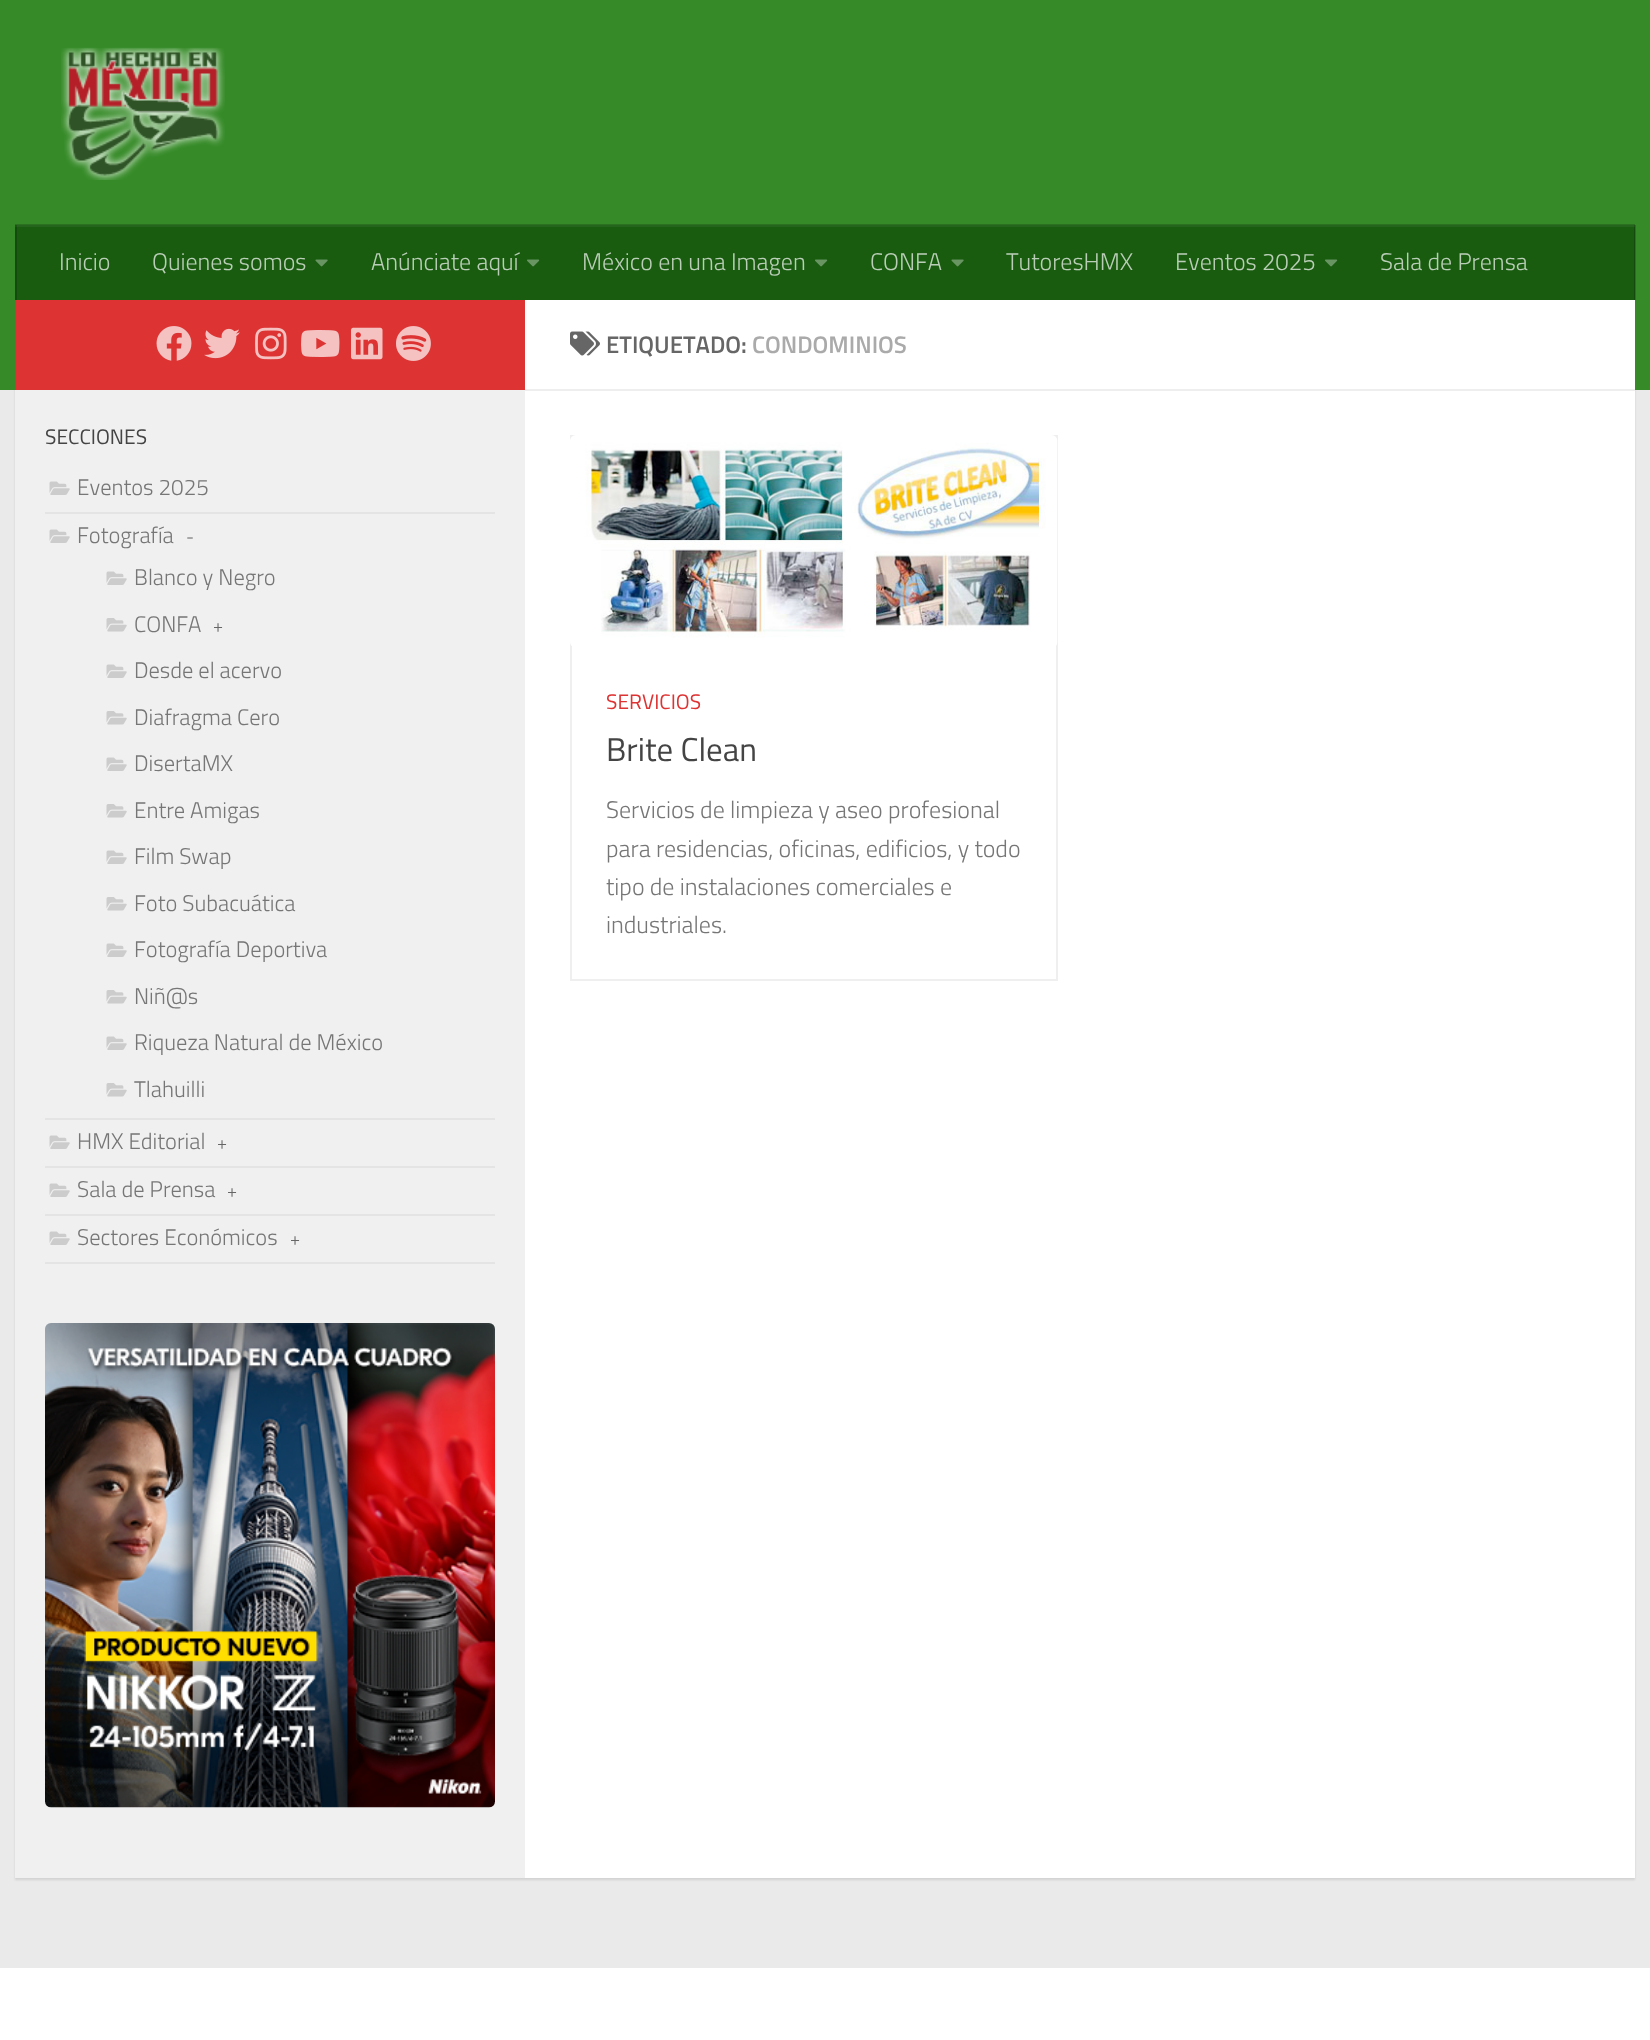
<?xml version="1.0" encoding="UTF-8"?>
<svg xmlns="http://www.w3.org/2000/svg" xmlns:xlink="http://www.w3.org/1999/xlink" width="1650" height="2040">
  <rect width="100%" height="100%" fill="#eaeaea" />
  <rect x="15" y="302" width="1620" height="1578" fill="#000000" fill-opacity="0.1" filter="blur(1px)" />
  <rect width="1650" height="390" fill="#368b28" />
  <rect x="1635" y="225" width="1" height="75" fill="#2b6f20" />
  <image x="61" y="47" width="164" height="133" xlink:href="image1.png" />
  <rect x="15" y="224" width="1620" height="1" fill="#2b6f20" />
  <rect x="17" y="227" width="1617" height="73" fill="#195c10" />
  <rect x="15" y="225" width="1620" height="2" fill="#25641c" />
  <rect x="1634" y="225" width="1" height="75" fill="#144a0d" />
  <rect x="1634" y="225" width="1" height="2" fill="#205319" />
  <rect x="15" y="225" width="2" height="75" fill="#144a0d" />
  <rect x="15" y="225" width="2" height="2" fill="#205319" />
  <image x="315" y="259" width="13" height="8" xlink:href="image2.png" />
  <image x="527" y="259" width="13" height="8" xlink:href="image3.png" />
  <image x="815" y="259" width="13" height="8" xlink:href="image3.png" />
  <image x="951" y="259" width="13" height="8" xlink:href="image2.png" />
  <image x="1325" y="259" width="13" height="8" xlink:href="image3.png" />
  <rect x="525" y="300" width="1110" height="1578" fill="#ffffff" />
  <rect x="15" y="300" width="510" height="90" fill="#dd3333" />
  <image x="156" y="326" width="36" height="35" xlink:href="image4.png" />
  <image x="204" y="328" width="36" height="31" xlink:href="image5.png" />
  <image x="255" y="327" width="32" height="33" xlink:href="image6.png" />
  <image x="301" y="330" width="39" height="27" xlink:href="image7.png" />
  <image x="351" y="327" width="32" height="33" xlink:href="image8.png" />
  <image x="396" y="326" width="35" height="35" xlink:href="image9.png" />
  <rect x="15" y="390" width="510" height="1488" fill="#f0f0f0" />
  <rect x="45" y="512" width="450" height="2" fill="#e4e4e4" />
  <image x="49" y="481" width="21" height="14" xlink:href="image10.png" />
  <rect x="45" y="1118" width="450" height="2" fill="#e4e4e4" />
  <image x="49" y="529" width="21" height="14" xlink:href="image10.png" />
  <image x="106" y="571" width="21" height="14" xlink:href="image10.png" />
  <image x="106" y="618" width="21" height="14" xlink:href="image11.png" />
  <image x="106" y="664" width="21" height="14" xlink:href="image10.png" />
  <image x="106" y="711" width="21" height="14" xlink:href="image11.png" />
  <image x="106" y="757" width="21" height="14" xlink:href="image10.png" />
  <image x="106" y="804" width="21" height="14" xlink:href="image11.png" />
  <image x="106" y="850" width="21" height="14" xlink:href="image10.png" />
  <image x="106" y="897" width="21" height="14" xlink:href="image11.png" />
  <image x="106" y="943" width="21" height="14" xlink:href="image10.png" />
  <image x="106" y="990" width="21" height="14" xlink:href="image11.png" />
  <image x="106" y="1036" width="21" height="14" xlink:href="image10.png" />
  <image x="106" y="1083" width="21" height="14" xlink:href="image11.png" />
  <rect x="45" y="1166" width="450" height="2" fill="#e4e4e4" />
  <image x="49" y="1135" width="21" height="14" xlink:href="image10.png" />
  <rect x="45" y="1214" width="450" height="2" fill="#e4e4e4" />
  <image x="49" y="1183" width="21" height="14" xlink:href="image10.png" />
  <rect x="45" y="1262" width="450" height="2" fill="#e4e4e4" />
  <image x="49" y="1231" width="21" height="14" xlink:href="image10.png" />
  <image x="45" y="1323" width="450" height="485" xlink:href="image12.png" />
  <rect x="525" y="389" width="1110" height="2" fill="#eeeeee" />
  <image x="570" y="331" width="30" height="25" xlink:href="image13.png" />
  <rect x="571" y="436" width="486" height="544" fill="none" stroke="#efefef" stroke-width="2" />
  <image x="570" y="435" width="488" height="211" xlink:href="image14.png" />
  <rect y="1968" width="1650" height="72" fill="#ffffff" />
  <text x="59" y="270" style="font-family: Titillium; font-size: 24px; font-weight: 300; fill: #baceb7">Inicio</text>
  <text x="152" y="270" style="font-family: Titillium; font-size: 24px; font-weight: 300; fill: #baceb7">Quienes somos</text>
  <text x="371" y="270" style="font-family: Titillium; font-size: 24px; font-weight: 300; fill: #baceb7">Anúnciate aquí</text>
  <text x="582" y="270" style="font-family: Titillium; font-size: 24px; font-weight: 300; fill: #baceb7">México en una Imagen</text>
  <text x="870" y="270" style="font-family: Titillium; font-size: 24px; font-weight: 300; fill: #baceb7">CONFA</text>
  <text x="1006" y="270" style="font-family: Titillium; font-size: 24px; font-weight: 300; fill: #baceb7">TutoresHMX</text>
  <text x="1175" y="270" style="font-family: Titillium; font-size: 24px; font-weight: 300; fill: #baceb7">Eventos 2025</text>
  <text x="1380" y="270" style="font-family: Titillium; font-size: 24px; font-weight: 300; fill: #baceb7">Sala de Prensa</text>
  <text x="45" y="444" style="font-family: Titillium; font-size: 21px; fill: #444444">SECCIONES</text>
  <text x="77" y="495" style="font-family: Titillium; font-size: 22.5px; font-weight: 300; fill: #767676">Eventos 2025</text>
  <text x="77" y="543" style="font-family: Titillium; font-size: 22.5px; font-weight: 300; fill: #767676">Fotografía</text>
  <text x="186" y="543" style="font-family: Titillium; font-size: 18px; font-weight: 300; fill: #666666">-</text>
  <text x="134" y="585" style="font-family: Titillium; font-size: 22.5px; font-weight: 300; fill: #767676">Blanco y Negro</text>
  <text x="134" y="632" style="font-family: Titillium; font-size: 22.5px; font-weight: 300; fill: #767676">CONFA</text>
  <text x="213" y="632" style="font-family: Titillium; font-size: 18px; font-weight: 300; fill: #666666">+</text>
  <text x="134" y="678" style="font-family: Titillium; font-size: 22.5px; font-weight: 300; fill: #767676">Desde el acervo</text>
  <text x="134" y="725" style="font-family: Titillium; font-size: 22.5px; font-weight: 300; fill: #767676">Diafragma Cero</text>
  <text x="134" y="771" style="font-family: Titillium; font-size: 22.5px; font-weight: 300; fill: #767676">DisertaMX</text>
  <text x="134" y="818" style="font-family: Titillium; font-size: 22.5px; font-weight: 300; fill: #767676">Entre Amigas</text>
  <text x="134" y="864" style="font-family: Titillium; font-size: 22.5px; font-weight: 300; fill: #767676">Film Swap</text>
  <text x="134" y="911" style="font-family: Titillium; font-size: 22.5px; font-weight: 300; fill: #767676">Foto Subacuática</text>
  <text x="134" y="957" style="font-family: Titillium; font-size: 22.5px; font-weight: 300; fill: #767676">Fotografía Deportiva</text>
  <text x="134" y="1004" style="font-family: Titillium; font-size: 22.5px; font-weight: 300; fill: #767676">Niñ@s</text>
  <text x="134" y="1050" style="font-family: Titillium; font-size: 22.5px; font-weight: 300; fill: #767676">Riqueza Natural de México</text>
  <text x="134" y="1097" style="font-family: Titillium; font-size: 22.5px; font-weight: 300; fill: #767676">Tlahuilli</text>
  <text x="77" y="1149" style="font-family: Titillium; font-size: 22.5px; font-weight: 300; fill: #767676">HMX Editorial</text>
  <text x="217" y="1149" style="font-family: Titillium; font-size: 18px; font-weight: 300; fill: #666666">+</text>
  <text x="77" y="1197" style="font-family: Titillium; font-size: 22.5px; font-weight: 300; fill: #767676">Sala de Prensa</text>
  <text x="227" y="1197" style="font-family: Titillium; font-size: 18px; font-weight: 300; fill: #666666">+</text>
  <text x="77" y="1245" style="font-family: Titillium; font-size: 22.5px; font-weight: 300; fill: #767676">Sectores Económicos</text>
  <text x="290" y="1245" style="font-family: Titillium; font-size: 18px; font-weight: 300; fill: #666666">+</text>
  <text x="606" y="353" style="font-family: Titillium; font-size: 24px; font-weight: 600; fill: #666666">ETIQUETADO:</text>
  <text x="752" y="353" style="font-family: Titillium; font-size: 24px; font-weight: 600; fill: #aaaaaa">CONDOMINIOS</text>
  <text x="606" y="709" style="font-family: Titillium; font-size: 21px; fill: #dd3333">SERVICIOS</text>
  <text x="606" y="761" style="font-family: Titillium; font-size: 33px; fill: #444444">Brite Clean</text>
  <text x="606" y="818" style="font-family: Titillium; font-size: 24px; font-weight: 300; fill: #767676">Servicios de limpieza y aseo profesional</text>
  <text x="606" y="857" style="font-family: Titillium; font-size: 24px; font-weight: 300; fill: #767676">para residencias, oficinas, edificios, y todo</text>
  <text x="606" y="895" style="font-family: Titillium; font-size: 24px; font-weight: 300; fill: #767676">tipo de instalaciones comerciales e</text>
  <text x="606" y="933" style="font-family: Titillium; font-size: 24px; font-weight: 300; fill: #767676">industriales.</text>
</svg>
